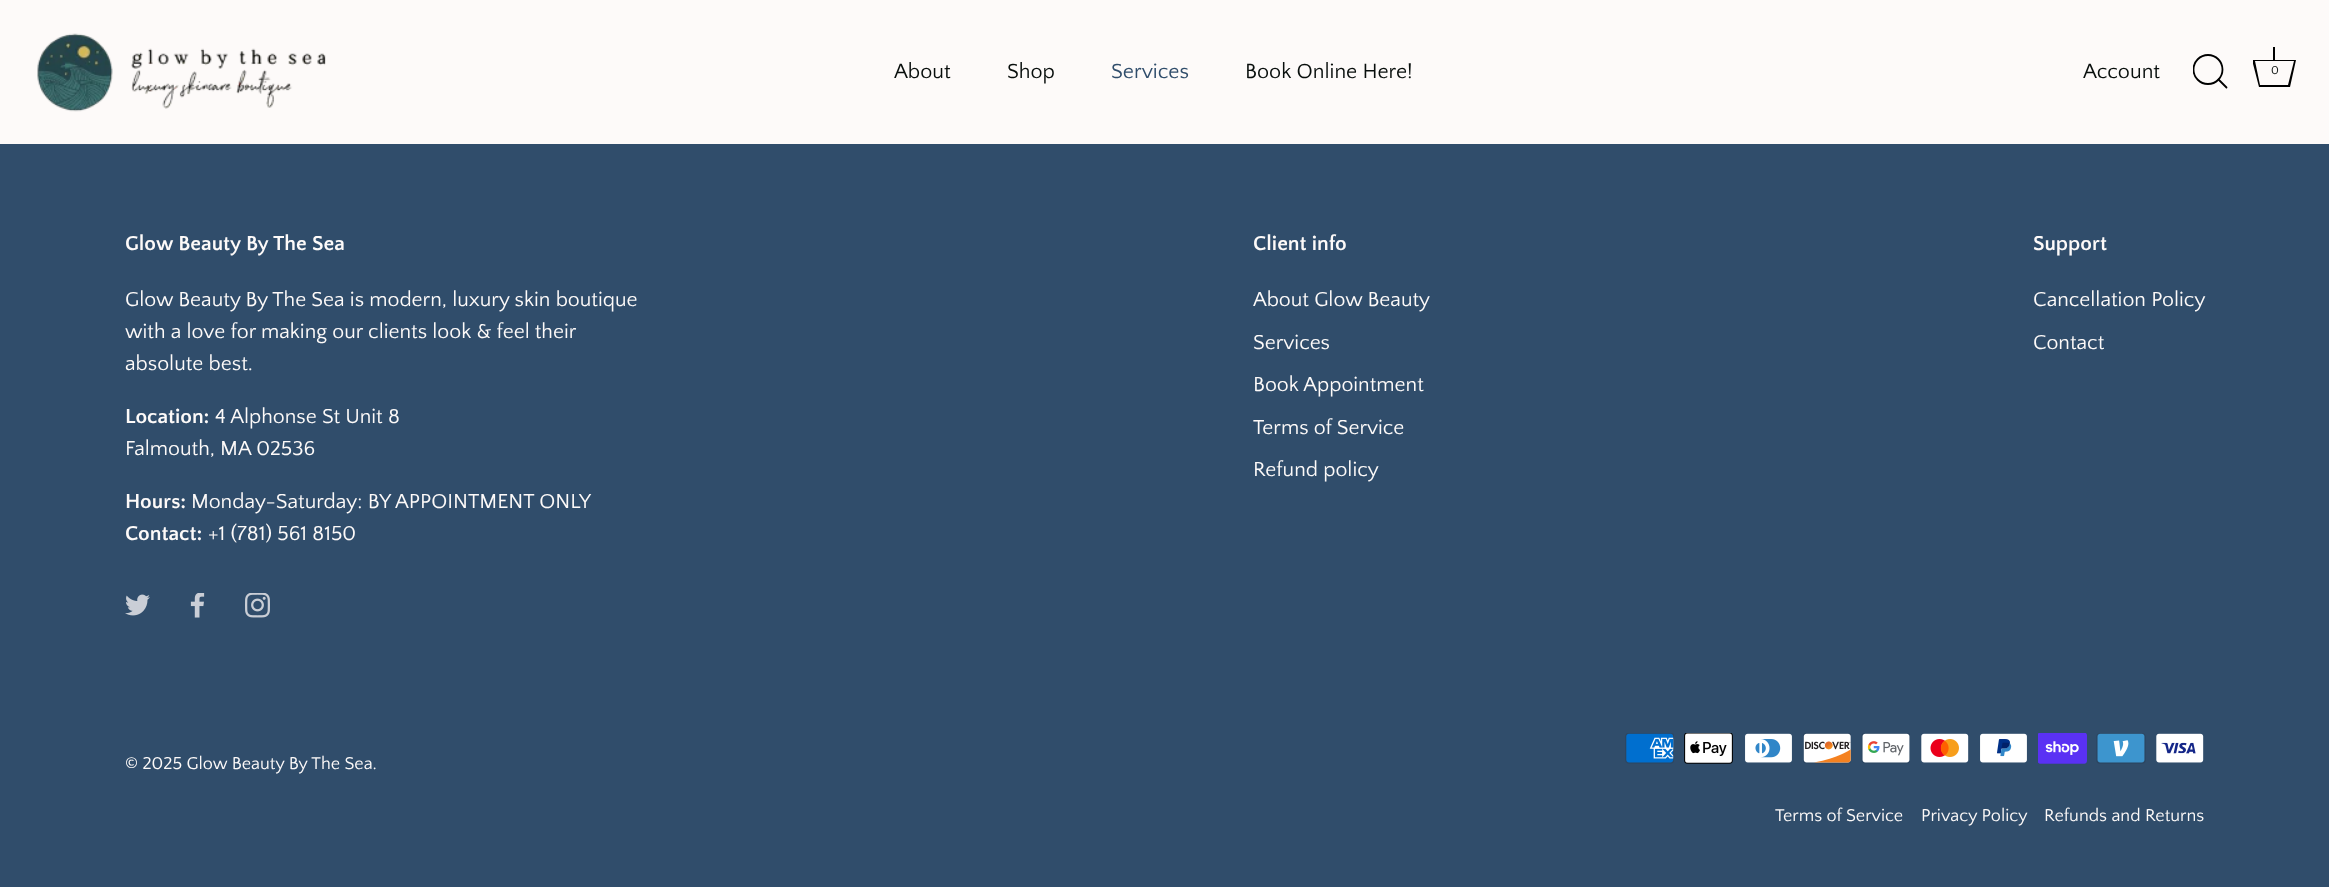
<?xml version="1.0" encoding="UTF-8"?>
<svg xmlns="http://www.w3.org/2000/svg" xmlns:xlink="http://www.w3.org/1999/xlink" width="2329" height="887">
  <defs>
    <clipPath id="clip1"><rect x="2193" y="54" width="36" height="36" /></clipPath>
    <clipPath id="clip2"><rect x="2253" y="45" width="43" height="44" /></clipPath>
  </defs>
  <rect width="100%" height="100%" fill="#304d6b" />
  <rect width="2329" height="144" fill="#fdfaf9" />
  <image x="37" y="33" width="289" height="79" xlink:href="image1.png" />
  <g clip-path="url(#clip1)">
    <circle cx="2208" cy="69.5" r="14.5" fill="none" stroke="#000000" stroke-width="1.8" />
  </g>
  <path d="M 2226.5 87.5 l -8 -8" fill="none" stroke="#000000" stroke-width="1.8" stroke-linecap="round" stroke-linejoin="round" />
  <rect x="2273" y="47" width="2" height="13" fill="#000000" />
  <g clip-path="url(#clip2)">
    <path d="M 2294 61 l -6 24 h -28 l -5 -24 h 39 m 2 -1 h -44 l 7 27 h 31 z" fill="#000000" />
  </g>
  <image x="125" y="594" width="25" height="22" xlink:href="image2.png" />
  <image x="190" y="593" width="15" height="25" xlink:href="image3.png" />
  <image x="245" y="593" width="25" height="25" xlink:href="image4.png" />
  <image x="1625" y="733" width="49" height="31" xlink:href="image5.png" />
  <image x="1684" y="733" width="49" height="31" xlink:href="image6.png" />
  <image x="1745" y="733" width="47" height="30" xlink:href="image7.png" />
  <image x="1803" y="733" width="48" height="31" xlink:href="image8.png" />
  <image x="1861" y="733" width="49" height="31" xlink:href="image9.png" />
  <image x="1921" y="733" width="48" height="30" xlink:href="image10.png" />
  <image x="1980" y="733" width="47" height="30" xlink:href="image11.png" />
  <image x="2038" y="733" width="49" height="31" xlink:href="image12.png" />
  <image x="2096" y="733" width="50" height="31" xlink:href="image13.png" />
  <image x="2156" y="733" width="48" height="30" xlink:href="image14.png" />
  <text x="894" y="78" style="font-family: Quattrocento Sans; font-size: 21.5px; fill: #080e0c">About</text>
  <text x="1007" y="78" style="font-family: Quattrocento Sans; font-size: 21.5px; fill: #080e0c">Shop</text>
  <text x="1111" y="78" style="font-family: Quattrocento Sans; font-size: 21.5px; fill: #304d6b">Services</text>
  <text x="1245" y="78" style="font-family: Quattrocento Sans; font-size: 21.5px; fill: #080e0c">Book Online Here!</text>
  <text x="2083" y="78" style="font-family: Quattrocento Sans; font-size: 21.5px; fill: #080e0c">Account</text>
  <text x="2271" y="74" style="font-family: Quattrocento Sans; font-size: 12px; fill: #080e0c">0</text>
  <text x="125" y="250" style="font-family: Quattrocento Sans; font-size: 21.25px; font-weight: bold; fill: #fdfaf9">Glow Beauty By The Sea</text>
  <text x="125" y="306" style="font-family: Quattrocento Sans; font-size: 21.25px; fill: #fdfaf9">Glow Beauty By The Sea is modern, luxury skin boutique</text>
  <text x="125" y="338" style="font-family: Quattrocento Sans; font-size: 21.25px; fill: #fdfaf9">with a love for making our clients look &amp; feel their</text>
  <text x="125" y="370" style="font-family: Quattrocento Sans; font-size: 21.25px; fill: #fdfaf9">absolute best.</text>
  <text x="125" y="423" style="font-family: Quattrocento Sans; font-size: 21.25px; font-weight: bold; fill: #fdfaf9">Location:</text>
  <text x="215" y="423" style="font-family: Quattrocento Sans; font-size: 21.25px; fill: #fdfaf9">4 Alphonse St Unit 8</text>
  <text x="125" y="455" style="font-family: Quattrocento Sans; font-size: 21.25px; fill: #fdfaf9">Falmouth, MA 02536</text>
  <text x="125" y="508" style="font-family: Quattrocento Sans; font-size: 21.25px; font-weight: bold; fill: #fdfaf9">Hours:</text>
  <text x="191" y="508" style="font-family: Quattrocento Sans; font-size: 21.25px; fill: #fdfaf9">Monday-Saturday: BY APPOINTMENT ONLY</text>
  <text x="125" y="540" style="font-family: Quattrocento Sans; font-size: 21.25px; font-weight: bold; fill: #fdfaf9">Contact:</text>
  <text x="208" y="540" style="font-family: Quattrocento Sans; font-size: 21.25px; fill: #fdfaf9">+1 (781) 561 8150</text>
  <text x="1253" y="250" style="font-family: Quattrocento Sans; font-size: 21.25px; font-weight: bold; fill: #fdfaf9">Client info</text>
  <text x="1253" y="306" style="font-family: Quattrocento Sans; font-size: 21.25px; fill: #fdfaf9">About Glow Beauty</text>
  <text x="1253" y="349" style="font-family: Quattrocento Sans; font-size: 21.25px; fill: #fdfaf9">Services</text>
  <text x="1253" y="391" style="font-family: Quattrocento Sans; font-size: 21.25px; fill: #fdfaf9">Book Appointment</text>
  <text x="1253" y="434" style="font-family: Quattrocento Sans; font-size: 21.25px; fill: #fdfaf9">Terms of Service</text>
  <text x="1253" y="476" style="font-family: Quattrocento Sans; font-size: 21.25px; fill: #fdfaf9">Refund policy</text>
  <text x="2033" y="250" style="font-family: Quattrocento Sans; font-size: 21.25px; font-weight: bold; fill: #fdfaf9">Support</text>
  <text x="2033" y="306" style="font-family: Quattrocento Sans; font-size: 21.25px; fill: #fdfaf9">Cancellation Policy</text>
  <text x="2033" y="349" style="font-family: Quattrocento Sans; font-size: 21.25px; fill: #fdfaf9">Contact</text>
  <text x="125" y="769" style="font-family: Quattrocento Sans; font-size: 18px; fill: #fdfaf9">© 2025 Glow Beauty By The Sea.</text>
  <text x="1775" y="821" style="font-family: Quattrocento Sans; font-size: 18px; fill: #fdfaf9">Terms of Service</text>
  <text x="1921" y="821" style="font-family: Quattrocento Sans; font-size: 18px; fill: #fdfaf9">Privacy Policy</text>
  <text x="2044" y="821" style="font-family: Quattrocento Sans; font-size: 18px; fill: #fdfaf9">Refunds and Returns</text>
</svg>
